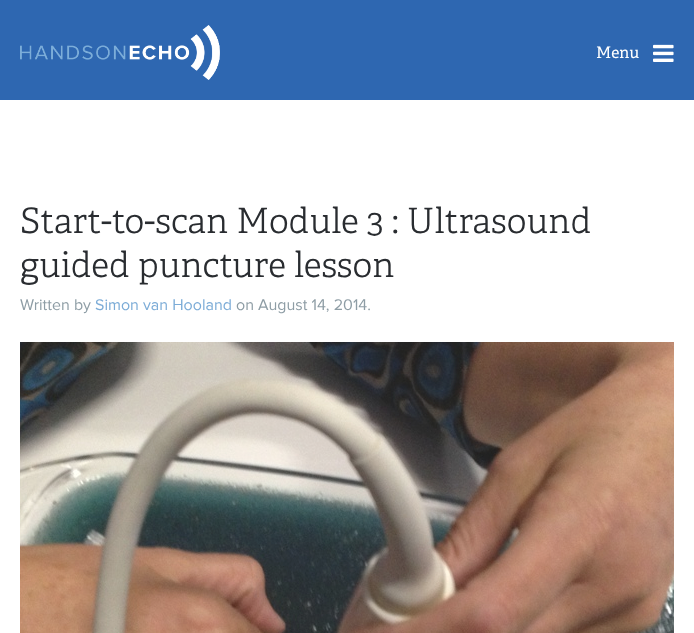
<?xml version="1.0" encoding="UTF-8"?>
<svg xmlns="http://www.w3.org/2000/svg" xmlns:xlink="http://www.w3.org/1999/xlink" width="694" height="633">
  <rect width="100%" height="100%" fill="#ffffff" />
  <rect width="694" height="100" fill="#2e67b1" />
  <image x="20" y="25" width="200" height="55" xlink:href="image1.png" />
  <image x="653" y="44" width="21" height="18" xlink:href="image2.png" />
  <image x="20" y="342" width="654" height="291" xlink:href="image3.png" />
  <text x="596" y="58" style="font-family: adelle; font-size: 16px; fill: #ffffff">Menu</text>
  <text x="20" y="233" style="font-family: adelle; font-size: 35px; font-weight: 300; fill: #292c30">Start-to-scan Module 3 : Ultrasound</text>
  <text x="20" y="277" style="font-family: adelle; font-size: 35px; font-weight: 300; fill: #292c30">guided puncture lesson</text>
  <text x="20" y="310" style="font-family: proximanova; font-size: 16px; fill: #8e9da5">Written by</text>
  <text x="95" y="310" style="font-family: proximanova; font-size: 16px; fill: #7cacd7">Simon van Hooland</text>
  <text x="236" y="310" style="font-family: proximanova; font-size: 16px; fill: #8e9da5">on August 14, 2014.</text>
</svg>
